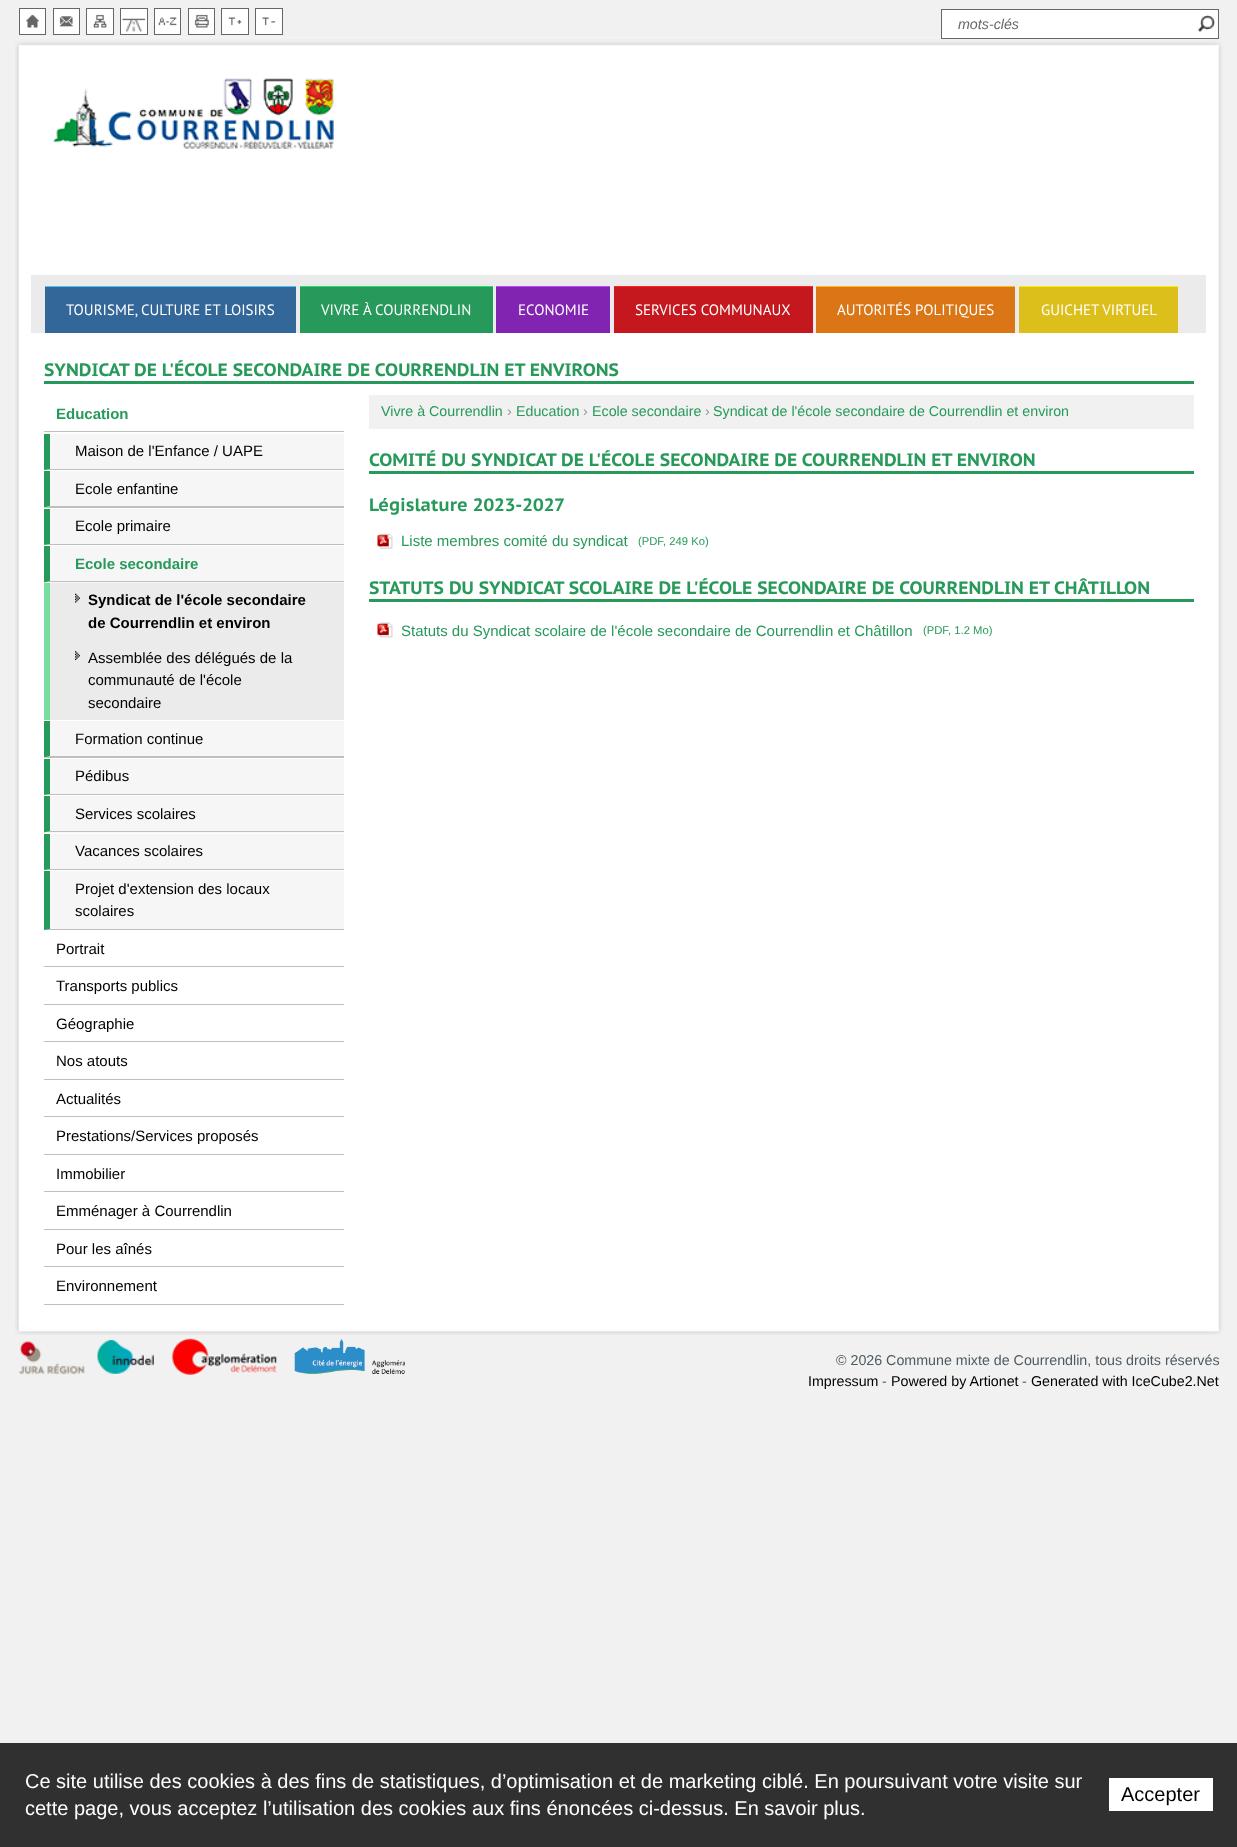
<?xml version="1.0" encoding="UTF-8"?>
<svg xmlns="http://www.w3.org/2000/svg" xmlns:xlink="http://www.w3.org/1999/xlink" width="1237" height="1847">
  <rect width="100%" height="100%" fill="#f1f1f1" />
  <image x="15" y="37" width="1208" height="1288" xlink:href="image1.png" />
  <image x="15" y="37" width="1208" height="10" xlink:href="image2.png" />
  <rect x="20" y="9" width="25" height="25" fill="#ffffff" />
  <image x="26" y="14" width="13" height="14" xlink:href="image3.png" />
  <rect x="19.5" y="8.5" width="26" height="26" fill="none" stroke="#666666" />
  <rect x="54" y="9" width="25" height="25" fill="#ffffff" />
  <image x="59" y="16" width="14" height="11" xlink:href="image4.png" />
  <rect x="53.5" y="8.5" width="26" height="26" fill="none" stroke="#666666" />
  <rect x="87" y="9" width="26" height="25" fill="#ffffff" />
  <image x="93" y="14" width="14" height="14" xlink:href="image5.png" />
  <rect x="86.5" y="8.5" width="27" height="26" fill="none" stroke="#666666" />
  <rect x="121" y="9" width="26" height="25" fill="#ffffff" />
  <image x="122" y="18" width="24" height="15" xlink:href="image6.png" />
  <rect x="120.5" y="8.5" width="27" height="26" fill="none" stroke="#666666" />
  <rect x="155" y="9" width="25" height="25" fill="#ffffff" />
  <image x="158" y="17" width="19" height="9" xlink:href="image7.png" />
  <rect x="154.5" y="8.5" width="26" height="26" fill="none" stroke="#666666" />
  <rect x="189" y="9" width="25" height="25" fill="#ffffff" />
  <image x="194" y="14" width="15" height="14" xlink:href="image8.png" />
  <rect x="188.5" y="8.5" width="26" height="26" fill="none" stroke="#666666" />
  <rect x="222" y="9" width="26" height="25" fill="#ffffff" />
  <image x="228" y="17" width="14" height="9" xlink:href="image9.png" />
  <rect x="221.5" y="8.5" width="27" height="26" fill="none" stroke="#666666" />
  <rect x="256" y="9" width="26" height="25" fill="#ffffff" />
  <image x="262" y="17" width="14" height="9" xlink:href="image10.png" />
  <rect x="255.5" y="8.5" width="27" height="26" fill="none" stroke="#666666" />
  <rect x="941.5" y="9.5" width="277" height="29" fill="#ffffff" stroke="#666666" />
  <image x="1197" y="15" width="18" height="18" xlink:href="image11.png" />
  <image x="53" y="78" width="281" height="71" xlink:href="image12.png" />
  <rect x="31" y="275" width="1175" height="58" fill="#ebebeb" />
  <rect x="45" y="287" width="251" height="46" fill="#336699" />
  <rect x="45" y="286" width="251" height="1" fill="#56c0f1" />
  <rect x="300" y="287" width="193" height="46" fill="#27995a" />
  <rect x="300" y="286" width="193" height="1" fill="#24dd6a" />
  <rect x="496" y="287" width="114" height="46" fill="#8224b2" />
  <rect x="496" y="286" width="114" height="1" fill="#c044ff" />
  <rect x="614" y="287" width="199" height="46" fill="#c4171e" />
  <rect x="614" y="286" width="199" height="1" fill="#fe2525" />
  <rect x="816" y="287" width="199" height="46" fill="#da7615" />
  <rect x="816" y="286" width="199" height="1" fill="#f8b820" />
  <rect x="1019" y="287" width="159" height="46" fill="#ddbf1b" />
  <rect x="1019" y="286" width="159" height="1" fill="#f6ee13" />
  <rect x="44" y="381" width="1150" height="3" fill="#27995a" />
  <rect x="369" y="471" width="825" height="3" fill="#27995a" />
  <image x="377" y="533" width="16" height="16" xlink:href="image13.png" />
  <rect x="369" y="599" width="825" height="3" fill="#27995a" />
  <image x="377" y="622" width="16" height="16" xlink:href="image14.png" />
  <rect x="44" y="431" width="300" height="1" fill="#bfbfbf" />
  <rect x="44" y="434" width="300" height="36" fill="#f6f6f6" />
  <path d="M 344 470 h -300 l 6 -1 h 294 z" fill="#bfbfbf" />
  <path d="M 44 470 v -36 h 6 v 35 z" fill="#27995a" />
  <rect x="44" y="471" width="300" height="37" fill="#f6f6f6" />
  <path d="M 344 508 h -300 l 6 -2 h 294 z" fill="#bfbfbf" />
  <path d="M 44 507.5 v -36.5 h 6 v 35 z" fill="#27995a" />
  <rect x="44" y="509" width="300" height="36" fill="#f6f6f6" />
  <path d="M 344 545 h -300 l 6 -1 h 294 z" fill="#bfbfbf" />
  <path d="M 44 545 v -36 h 6 v 35 z" fill="#27995a" />
  <rect x="44" y="546" width="300" height="37" fill="#f6f6f6" />
  <path d="M 344 582 h -300 l 6 -1 h 294 z" fill="#bfbfbf" />
  <path d="M 44 582.5 v -36.5 h 6 v 35 z" fill="#27995a" />
  <rect x="50" y="583" width="294" height="137" fill="#ebebeb" />
  <image x="75" y="593" width="5" height="10" xlink:href="image15.png" />
  <rect x="44" y="583" width="6" height="137" fill="#79dd9f" />
  <image x="75" y="651" width="5" height="9" xlink:href="image16.png" />
  <rect x="44" y="721" width="300" height="37" fill="#f6f6f6" />
  <path d="M 344 758 h -300 l 6 -2 h 294 z" fill="#bfbfbf" />
  <path d="M 44 757.5 v -36.5 h 6 v 35 z" fill="#27995a" />
  <rect x="44" y="759" width="300" height="36" fill="#f6f6f6" />
  <path d="M 344 795 h -300 l 6 -1 h 294 z" fill="#bfbfbf" />
  <path d="M 44 795 v -36 h 6 v 35 z" fill="#27995a" />
  <rect x="44" y="796" width="300" height="37" fill="#f6f6f6" />
  <path d="M 344 832 h -300 l 6 -1 h 294 z" fill="#bfbfbf" />
  <path d="M 44 832.5 v -36.5 h 6 v 35 z" fill="#27995a" />
  <rect x="44" y="834" width="300" height="36" fill="#f6f6f6" />
  <path d="M 344 870 h -300 l 6 -1 h 294 z" fill="#bfbfbf" />
  <path d="M 44 870 v -36 h 6 v 35 z" fill="#27995a" />
  <rect x="44" y="871" width="300" height="59" fill="#f6f6f6" />
  <path d="M 344 930 h -300 l 6 -1 h 294 z" fill="#bfbfbf" />
  <path d="M 44 930 v -59 h 6 v 58 z" fill="#27995a" />
  <rect x="44" y="966" width="300" height="1" fill="#bfbfbf" />
  <rect x="44" y="1004" width="300" height="1" fill="#bfbfbf" />
  <rect x="44" y="1041" width="300" height="1" fill="#bfbfbf" />
  <rect x="44" y="1079" width="300" height="1" fill="#bfbfbf" />
  <rect x="44" y="1116" width="300" height="1" fill="#bfbfbf" />
  <rect x="44" y="1154" width="300" height="1" fill="#bfbfbf" />
  <rect x="44" y="1191" width="300" height="1" fill="#bfbfbf" />
  <rect x="44" y="1229" width="300" height="1" fill="#bfbfbf" />
  <rect x="44" y="1266" width="300" height="1" fill="#bfbfbf" />
  <rect x="44" y="1304" width="300" height="1" fill="#bfbfbf" />
  <rect x="369" y="395" width="825" height="34" fill="#f1f1f1" />
  <image x="15" y="1325" width="1208" height="10" xlink:href="image17.png" />
  <image x="18" y="1341" width="67" height="34" xlink:href="image18.png" />
  <image x="97" y="1339" width="57" height="35" xlink:href="image19.png" />
  <image x="171" y="1337" width="106" height="38" xlink:href="image20.png" />
  <image x="294" y="1339" width="111" height="36" xlink:href="image21.png" />
  <rect y="1743" width="1237" height="104" fill="#303030" />
  <rect x="1109" y="1778" width="104" height="33" fill="#ffffff" />
  <text x="958" y="29" style="font-family: Liberation Sans; font-size: 14.25px; font-style: italic; fill: #666666">mots-clés</text>
  <text x="66" y="315" style="font-family: PT Sans; font-size: 15px; fill: #ffffff">TOURISME, CULTURE ET LOISIRS</text>
  <text x="321" y="315" style="font-family: PT Sans; font-size: 15px; fill: #ffffff">VIVRE À COURRENDLIN</text>
  <text x="518" y="315" style="font-family: PT Sans; font-size: 15px; fill: #ffffff">ECONOMIE</text>
  <text x="635" y="315" style="font-family: PT Sans; font-size: 15px; fill: #ffffff">SERVICES COMMUNAUX</text>
  <text x="837" y="315" style="font-family: PT Sans; font-size: 15px; fill: #ffffff">AUTORITÉS POLITIQUES</text>
  <text x="1041" y="315" style="font-family: PT Sans; font-size: 15px; fill: #ffffff">GUICHET VIRTUEL</text>
  <text x="44" y="376" style="font-family: PT Sans Caption; font-size: 18px; font-weight: bold; fill: #27995a">SYNDICAT DE L'ÉCOLE SECONDAIRE DE COURRENDLIN ET ENVIRONS</text>
  <text x="369" y="466" style="font-family: PT Sans Caption; font-size: 18px; font-weight: bold; fill: #27995a">COMITÉ DU SYNDICAT DE L'ÉCOLE SECONDAIRE DE COURRENDLIN ET ENVIRON</text>
  <text x="369" y="511" style="font-family: PT Sans Caption; font-size: 18px; font-weight: bold; fill: #27995a">Législature 2023-2027</text>
  <text x="401" y="546" style="font-family: Liberation Sans; font-size: 15px; fill: #27995a">Liste membres comité du syndicat</text>
  <text x="638" y="545" style="font-family: Liberation Sans; font-size: 11.25px; fill: #27995a">(PDF, 249 Ko)</text>
  <text x="369" y="594" style="font-family: PT Sans Caption; font-size: 18px; font-weight: bold; fill: #27995a">STATUTS DU SYNDICAT SCOLAIRE DE L'ÉCOLE SECONDAIRE DE COURRENDLIN ET CHÂTILLON</text>
  <text x="401" y="636" style="font-family: Liberation Sans; font-size: 15px; fill: #27995a">Statuts du Syndicat scolaire de l'école secondaire de Courrendlin et Châtillon</text>
  <text x="923" y="634" style="font-family: Liberation Sans; font-size: 11.25px; fill: #27995a">(PDF, 1.2 Mo)</text>
  <text x="56" y="419" style="font-family: Liberation Sans; font-size: 15px; font-weight: bold; fill: #27995a">Education</text>
  <text x="75" y="456" style="font-family: Liberation Sans; font-size: 15px; fill: #000000">Maison de l'Enfance / UAPE</text>
  <text x="75" y="494" style="font-family: Liberation Sans; font-size: 15px; fill: #000000">Ecole enfantine</text>
  <text x="75" y="531" style="font-family: Liberation Sans; font-size: 15px; fill: #000000">Ecole primaire</text>
  <text x="75" y="569" style="font-family: Liberation Sans; font-size: 15px; font-weight: bold; fill: #27995a">Ecole secondaire</text>
  <text x="88" y="605" style="font-family: Liberation Sans; font-size: 15px; font-weight: bold; fill: #000000">Syndicat de l'école secondaire</text>
  <text x="88" y="628" style="font-family: Liberation Sans; font-size: 15px; font-weight: bold; fill: #000000">de Courrendlin et environ</text>
  <text x="88" y="663" style="font-family: Liberation Sans; font-size: 15px; fill: #000000">Assemblée des délégués de la</text>
  <text x="88" y="685" style="font-family: Liberation Sans; font-size: 15px; fill: #000000">communauté de l'école</text>
  <text x="88" y="708" style="font-family: Liberation Sans; font-size: 15px; fill: #000000">secondaire</text>
  <text x="75" y="744" style="font-family: Liberation Sans; font-size: 15px; fill: #000000">Formation continue</text>
  <text x="75" y="781" style="font-family: Liberation Sans; font-size: 15px; fill: #000000">Pédibus</text>
  <text x="75" y="819" style="font-family: Liberation Sans; font-size: 15px; fill: #000000">Services scolaires</text>
  <text x="75" y="856" style="font-family: Liberation Sans; font-size: 15px; fill: #000000">Vacances scolaires</text>
  <text x="75" y="894" style="font-family: Liberation Sans; font-size: 15px; fill: #000000">Projet d'extension des locaux</text>
  <text x="75" y="916" style="font-family: Liberation Sans; font-size: 15px; fill: #000000">scolaires</text>
  <text x="56" y="954" style="font-family: Liberation Sans; font-size: 15px; fill: #000000">Portrait</text>
  <text x="56" y="991" style="font-family: Liberation Sans; font-size: 15px; fill: #000000">Transports publics</text>
  <text x="56" y="1029" style="font-family: Liberation Sans; font-size: 15px; fill: #000000">Géographie</text>
  <text x="56" y="1066" style="font-family: Liberation Sans; font-size: 15px; fill: #000000">Nos atouts</text>
  <text x="56" y="1104" style="font-family: Liberation Sans; font-size: 15px; fill: #000000">Actualités</text>
  <text x="56" y="1141" style="font-family: Liberation Sans; font-size: 15px; fill: #000000">Prestations/Services proposés</text>
  <text x="56" y="1179" style="font-family: Liberation Sans; font-size: 15px; fill: #000000">Immobilier</text>
  <text x="56" y="1216" style="font-family: Liberation Sans; font-size: 15px; fill: #000000">Emménager à Courrendlin</text>
  <text x="56" y="1254" style="font-family: Liberation Sans; font-size: 15px; fill: #000000">Pour les aînés</text>
  <text x="56" y="1291" style="font-family: Liberation Sans; font-size: 15px; fill: #000000">Environnement</text>
  <text x="381" y="416" style="font-family: Liberation Sans; font-size: 14.25px; fill: #27995a">Vivre à Courrendlin</text>
  <text x="507" y="416" style="font-family: Liberation Sans; font-size: 14.25px; fill: #999999">›</text>
  <text x="516" y="416" style="font-family: Liberation Sans; font-size: 14.25px; fill: #27995a">Education</text>
  <text x="583" y="416" style="font-family: Liberation Sans; font-size: 14.25px; fill: #999999">›</text>
  <text x="592" y="416" style="font-family: Liberation Sans; font-size: 14.25px; fill: #27995a">Ecole secondaire</text>
  <text x="705" y="416" style="font-family: Liberation Sans; font-size: 14.25px; fill: #999999">›</text>
  <text x="713" y="416" style="font-family: Liberation Sans; font-size: 14.25px; fill: #27995a">Syndicat de l'école secondaire de Courrendlin et environ</text>
  <text x="836" y="1365" style="font-family: Liberation Sans; font-size: 14.25px; fill: #4e5a61">© 2026 Commune mixte de Courrendlin, tous droits réservés</text>
  <text x="808" y="1386" style="font-family: Liberation Sans; font-size: 14.25px; fill: #000000">Impressum</text>
  <text x="882" y="1386" style="font-family: Liberation Sans; font-size: 14.25px; fill: #4e5a61">-</text>
  <text x="891" y="1386" style="font-family: Liberation Sans; font-size: 14.25px; fill: #000000">Powered by Artionet</text>
  <text x="1022" y="1386" style="font-family: Liberation Sans; font-size: 14.25px; fill: #4e5a61">-</text>
  <text x="1031" y="1386" style="font-family: Liberation Sans; font-size: 14.25px; fill: #000000">Generated with IceCube2.Net</text>
  <text x="25" y="1788" style="font-family: Liberation Sans; font-size: 20px; fill: #ffffff">Ce site utilise des cookies à des fins de statistiques, d’optimisation et de marketing ciblé. En poursuivant votre visite sur</text>
  <text x="25" y="1815" style="font-family: Liberation Sans; font-size: 20px; fill: #ffffff">cette page, vous acceptez l’utilisation des cookies aux fins énoncées ci-dessus. En savoir plus.</text>
  <text x="1121" y="1801" style="font-family: Liberation Sans; font-size: 20px; fill: #000000">Accepter</text>
</svg>
